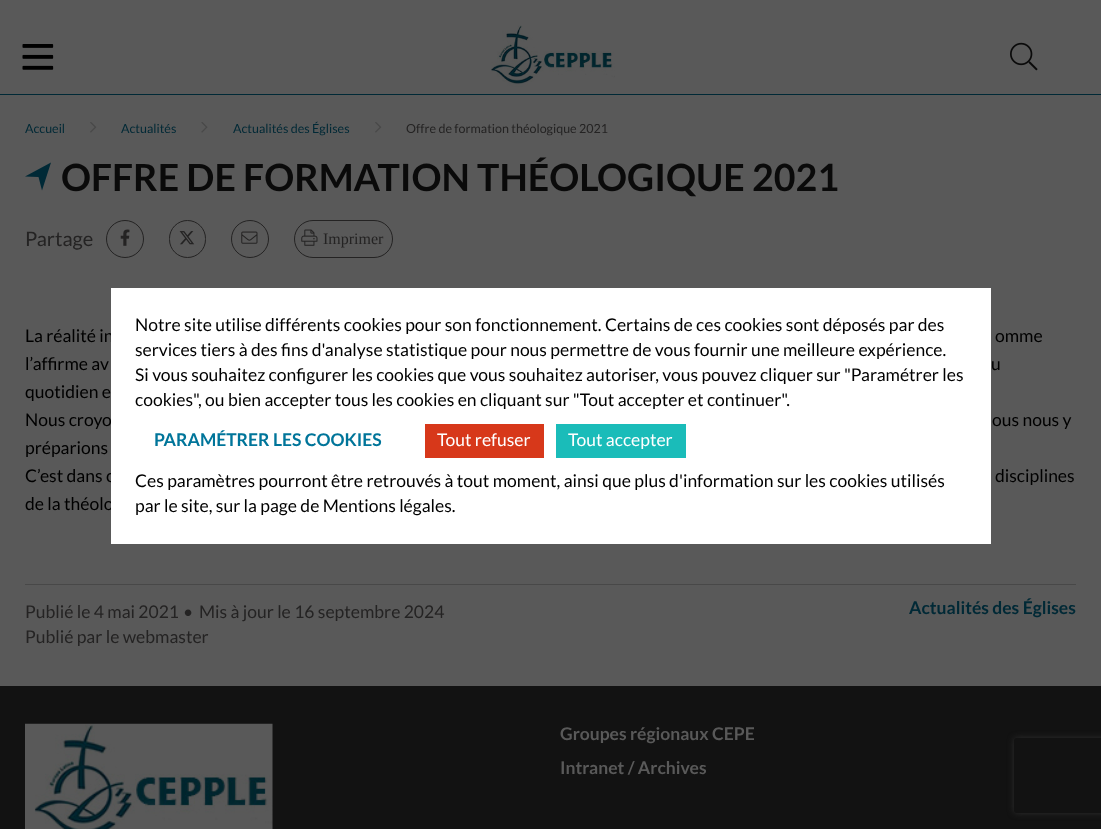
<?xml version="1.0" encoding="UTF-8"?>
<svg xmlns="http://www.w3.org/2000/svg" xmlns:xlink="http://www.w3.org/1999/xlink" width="1101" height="829">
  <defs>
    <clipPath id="clip1"><path d="M 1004 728 h 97 v 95 h -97 z m 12.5 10 h 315 c 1.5 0 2.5 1 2.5 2.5 v 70 c 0 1.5 -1 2.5 -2.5 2.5 h -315 c -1.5 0 -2.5 -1 -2.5 -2.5 v -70 c 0 -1.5 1 -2.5 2.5 -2.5 z" clip-rule="evenodd" /></clipPath>
  </defs>
  <rect width="100%" height="100%" fill="#595959" />
  <rect y="94" width="1101" height="1" fill="#002936" />
  <image x="22" y="44" width="32" height="26" xlink:href="image1.png" />
  <image x="491" y="25" width="124" height="62" xlink:href="image2.png" />
  <image x="1010" y="42" width="28" height="29" xlink:href="image3.png" />
  <image x="90" y="122" width="7" height="11" xlink:href="image4.png" />
  <image x="201" y="122" width="7" height="11" xlink:href="image5.png" />
  <image x="375" y="122" width="7" height="11" xlink:href="image4.png" />
  <path d="M 25 176.5 l 13.5 0.5 l 3.5 13.5 l 9 -28 z" fill="#002936" />
  <circle cx="125" cy="239" r="18.5" fill="none" stroke="#242323" />
  <image x="120" y="229" width="10" height="17" xlink:href="image6.png" />
  <rect x="169.5" y="220.5" width="36" height="37" rx="18" fill="none" stroke="#242323" />
  <image x="179" y="231" width="16" height="14" xlink:href="image7.png" />
  <circle cx="250" cy="239" r="18.5" fill="none" stroke="#242323" />
  <image x="241" y="231" width="17" height="13" xlink:href="image8.png" />
  <rect x="294.5" y="220.5" width="98" height="37" rx="18.5" fill="none" stroke="#242323" />
  <image x="301" y="229" width="17" height="17" xlink:href="image9.png" />
  <rect x="25" y="584" width="1051" height="1" fill="#484848" />
  <rect y="686" width="1101" height="143" fill="#121212" />
  <image x="25" y="723" width="248" height="106" xlink:href="image10.png" />
  <g clip-path="url(#clip1)">
    <rect x="1014" y="738" width="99" height="75" rx="2.5" fill="#2d2d2d" filter="blur(3px)" />
  </g>
  <text x="25" y="133" style="font-family: Lato; font-size: 12.5px; fill: #002936">Accueil</text>
  <text x="121" y="133" style="font-family: Lato; font-size: 12.5px; fill: #002936">Actualités</text>
  <text x="233" y="133" style="font-family: Lato; font-size: 12.5px; fill: #002936">Actualités des Églises</text>
  <text x="406" y="133" style="font-family: Lato; font-size: 12.5px; fill: #242323">Offre de formation théologique 2021</text>
  <text x="61" y="191" style="font-family: Lato; font-size: 37.5px; font-weight: bold; fill: #0a0a0a">OFFRE DE FORMATION THÉOLOGIQUE 2021</text>
  <text x="25" y="246" style="font-family: Lato; font-size: 20px; fill: #242323">Partage</text>
  <text x="323" y="244" style="font-family: Liberation Serif; font-size: 16px; fill: #242323">Imprimer</text>
  <text x="25" y="342" style="font-family: Lato; font-size: 17.5px; fill: #000000">La réalité in</text>
  <text x="995" y="342" style="font-family: Lato; font-size: 17.5px; fill: #000000">omme</text>
  <text x="25" y="370" style="font-family: Lato; font-size: 17.5px; fill: #000000">l’affirme av</text>
  <text x="991" y="370" style="font-family: Lato; font-size: 17.5px; fill: #000000">u</text>
  <text x="25" y="398" style="font-family: Lato; font-size: 17.5px; fill: #000000">quotidien e</text>
  <text x="25" y="426" style="font-family: Lato; font-size: 17.5px; fill: #000000">Nous croyo</text>
  <text x="992" y="426" style="font-family: Lato; font-size: 17.5px; fill: #000000">ous nous y</text>
  <text x="25" y="454" style="font-family: Lato; font-size: 17.5px; fill: #000000">préparions</text>
  <text x="25" y="482" style="font-family: Lato; font-size: 17.5px; fill: #000000">C’est dans c</text>
  <text x="995" y="482" style="font-family: Lato; font-size: 17.5px; fill: #000000">disciplines</text>
  <text x="25" y="510" style="font-family: Lato; font-size: 17.5px; fill: #000000">de la théolo</text>
  <text x="25" y="618" style="font-family: Lato; font-size: 17.5px; fill: #242323">Publié le 4 mai 2021</text>
  <text x="183" y="618" style="font-family: Lato; font-size: 17.5px; fill: #242323">•</text>
  <text x="199" y="618" style="font-family: Lato; font-size: 17.5px; fill: #242323">Mis à jour le 16 septembre 2024</text>
  <text x="25" y="643" style="font-family: Lato; font-size: 17.5px; fill: #242323">Publié par le webmaster</text>
  <text x="909" y="614" style="font-family: Lato; font-size: 17.5px; font-weight: bold; fill: #002936">Actualités des Églises</text>
  <rect x="111" y="288" width="880" height="256" fill="#ffffff" />
  <text x="135" y="331" style="font-family: Lato; font-size: 17.5px; fill: #000000">Notre site utilise différents cookies pour son fonctionnement. Certains de ces cookies sont déposés par des</text>
  <text x="135" y="356" style="font-family: Lato; font-size: 17.5px; fill: #000000">services tiers à des fins d'analyse statistique pour nous permettre de vous fournir une meilleure expérience.</text>
  <text x="135" y="381" style="font-family: Lato; font-size: 17.5px; fill: #000000">Si vous souhaitez configurer les cookies que vous souhaitez autoriser, vous pouvez cliquer sur "Paramétrer les</text>
  <text x="135" y="406" style="font-family: Lato; font-size: 17.5px; fill: #000000">cookies", ou bien accepter tous les cookies en cliquant sur "Tout accepter et continuer".</text>
  <text x="154" y="446" style="font-family: Lato; font-size: 17.5px; font-weight: bold; fill: #00759a">PARAMÉTRER LES COOKIES</text>
  <rect x="425" y="424" width="119" height="34" fill="#d7381a" />
  <text x="437" y="446" style="font-family: Lato; font-size: 17.5px; fill: #ffffff">Tout refuser</text>
  <rect x="556" y="424" width="130" height="34" fill="#1abcb9" />
  <text x="568" y="446" style="font-family: Lato; font-size: 17.5px; fill: #ffffff">Tout accepter</text>
  <text x="135" y="487" style="font-family: Lato; font-size: 17.5px; fill: #000000">Ces paramètres pourront être retrouvés à tout moment, ainsi que plus d'information sur les cookies utilisés</text>
  <text x="135" y="512" style="font-family: Lato; font-size: 17.5px; fill: #000000">par le site, sur la page de Mentions légales.</text>
  <text x="560" y="740" style="font-family: Lato; font-size: 17.5px; font-weight: bold; fill: #595959">Groupes régionaux CEPE</text>
  <text x="560" y="774" style="font-family: Lato; font-size: 17.5px; font-weight: bold; fill: #595959">Intranet / Archives</text>
</svg>
